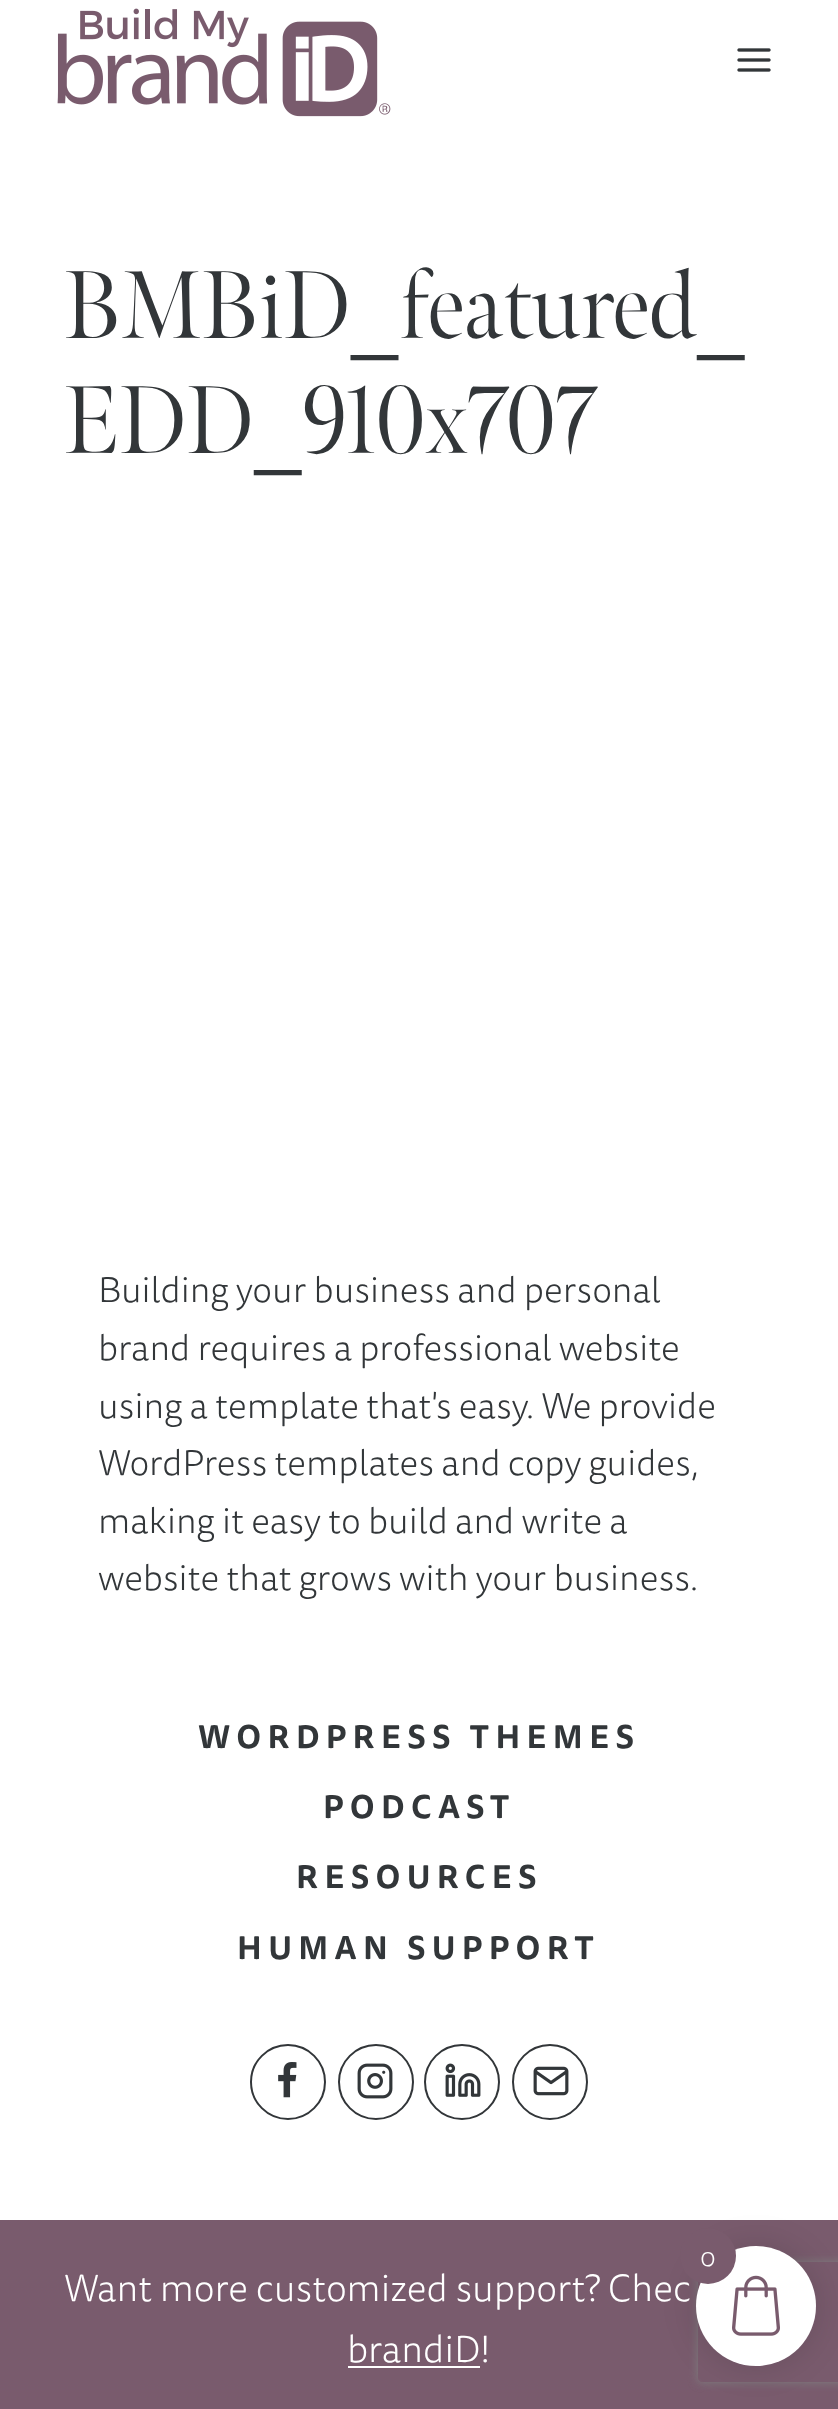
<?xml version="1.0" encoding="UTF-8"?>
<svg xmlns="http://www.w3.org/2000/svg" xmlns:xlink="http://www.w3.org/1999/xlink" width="838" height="2409">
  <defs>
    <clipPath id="clip1"><path d="M 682 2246 h 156 v 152 h -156 z m 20 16 h 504 c 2 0 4 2 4 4 v 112 c 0 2 -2 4 -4 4 h -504 c -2 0 -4 -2 -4 -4 v -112 c 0 -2 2 -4 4 -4 z" clip-rule="evenodd" /></clipPath>
  </defs>
  <rect width="100%" height="100%" fill="#ffffff" />
  <image x="57" y="8" width="334" height="109" xlink:href="image1.png" />
  <image x="737" y="48" width="34" height="24" xlink:href="image2.png" />
  <circle cx="288" cy="2082" r="37" fill="none" stroke="#323639" stroke-width="2" />
  <image x="278" y="2062" width="19" height="36" xlink:href="image3.png" />
  <circle cx="376" cy="2082" r="37" fill="none" stroke="#323639" stroke-width="2" />
  <image x="357" y="2063" width="36" height="36" xlink:href="image4.png" />
  <circle cx="462" cy="2082" r="37" fill="none" stroke="#323639" stroke-width="2" />
  <image x="445" y="2063" width="36" height="34" xlink:href="image5.png" />
  <circle cx="550" cy="2082" r="37" fill="none" stroke="#323639" stroke-width="2" />
  <image x="533" y="2066" width="36" height="30" xlink:href="image6.png" />
  <rect y="2220" width="838" height="189" fill="#795b6d" />
  <rect x="348" y="2366" width="132" height="2" fill="#ffffff" />
  <g clip-path="url(#clip1)">
    <rect x="698" y="2262" width="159" height="120" rx="4" fill="#808080" filter="blur(5px)" />
  </g>
  <rect x="692" y="2242" width="128" height="128" rx="64" fill="#000000" fill-opacity="0.1" filter="blur(15px)" />
  <circle cx="756" cy="2306" r="60" fill="#ffffff" />
  <image x="732" y="2275" width="48" height="61" xlink:href="image7.png" />
  <text x="64" y="338" style="font-family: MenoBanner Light; font-size: 96px; font-weight: 300; fill: #323639">BMBiD_featured_</text>
  <text x="64" y="453" style="font-family: MenoBanner Light; font-size: 96px; font-weight: 300; fill: #323639">EDD_910x707</text>
  <text x="98" y="1302" style="font-family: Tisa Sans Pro; font-size: 36px; font-weight: 300; fill: #323639">Building your business and personal</text>
  <text x="98" y="1360" style="font-family: Tisa Sans Pro; font-size: 36px; font-weight: 300; fill: #323639">brand requires a professional website</text>
  <text x="98" y="1418" style="font-family: Tisa Sans Pro; font-size: 36px; font-weight: 300; fill: #323639">using a template that's easy. We provide</text>
  <text x="98" y="1475" style="font-family: Tisa Sans Pro; font-size: 36px; font-weight: 300; fill: #323639">WordPress templates and copy guides,</text>
  <text x="98" y="1533" style="font-family: Tisa Sans Pro; font-size: 36px; font-weight: 300; fill: #323639">making it easy to build and write a</text>
  <text x="98" y="1590" style="font-family: Tisa Sans Pro; font-size: 36px; font-weight: 300; fill: #323639">website that grows with your business.</text>
  <text x="198" y="1748" style="font-family: Tisa Sans Pro; font-size: 32px; font-weight: bold; letter-spacing: 6.4px; fill: #323639">WORDPRESS THEMES</text>
  <text x="323" y="1818" style="font-family: Tisa Sans Pro; font-size: 32px; font-weight: bold; letter-spacing: 6.4px; fill: #323639">PODCAST</text>
  <text x="296" y="1888" style="font-family: Tisa Sans Pro; font-size: 32px; font-weight: bold; letter-spacing: 6.4px; fill: #323639">RESOURCES</text>
  <text x="237" y="1959" style="font-family: Tisa Sans Pro; font-size: 32px; font-weight: bold; letter-spacing: 6.4px; fill: #323639">HUMAN SUPPORT</text>
  <text x="64" y="2301" style="font-family: Tisa Sans Pro; font-size: 38px; font-weight: 300; fill: #ffffff">Want more customized support? Chec</text>
  <text x="347" y="2362" style="font-family: Tisa Sans Pro; font-size: 38px; font-weight: 300; fill: #ffffff">brandiD!</text>
  <circle cx="708" cy="2256" r="28" fill="#795b6d" />
  <text x="700" y="2266" style="font-family: Tisa Sans Pro; font-size: 26px; font-weight: 300; fill: #ffffff">0</text>
</svg>
